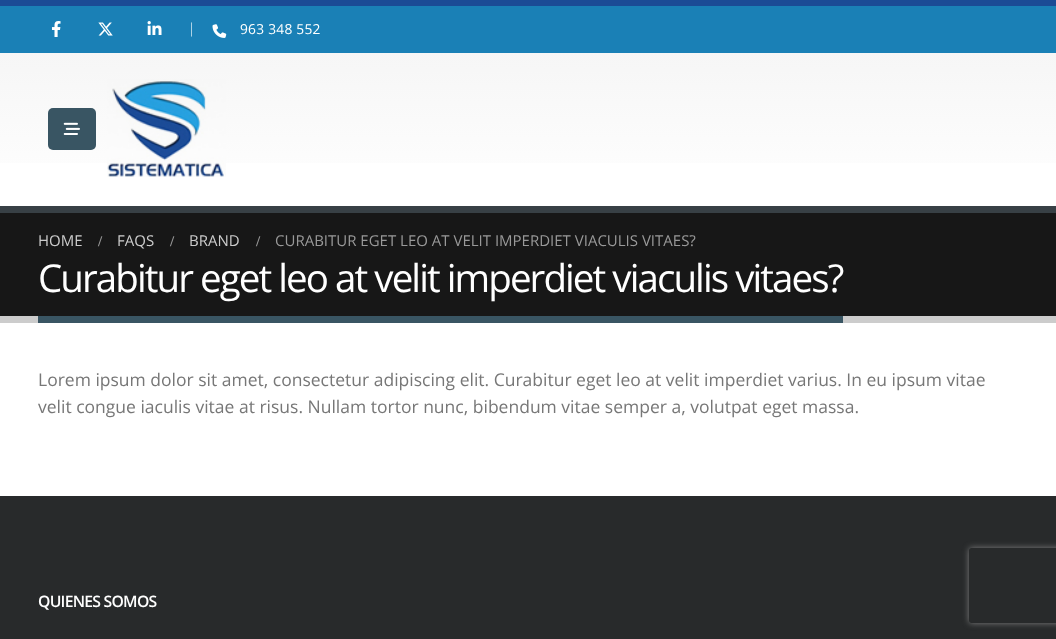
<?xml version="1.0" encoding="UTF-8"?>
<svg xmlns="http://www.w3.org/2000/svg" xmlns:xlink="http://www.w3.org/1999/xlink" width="1056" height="639">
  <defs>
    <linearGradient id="g1" gradientUnits="userSpaceOnUse" x1="528" y1="52" x2="528" y2="206"><stop offset="0" stop-color="#f6f6f6" /><stop offset="1" stop-color="#ffffff" /></linearGradient>
    <clipPath id="clip1"><path d="M 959 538 h 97 v 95 h -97 z m 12.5 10 h 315 c 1.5 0 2.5 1 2.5 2.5 v 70 c 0 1.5 -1 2.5 -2.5 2.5 h -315 c -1.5 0 -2.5 -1 -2.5 -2.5 v -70 c 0 -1.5 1 -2.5 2.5 -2.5 z" clip-rule="evenodd" /></clipPath>
  </defs>
  <rect width="100%" height="100%" fill="#ffffff" />
  <rect width="1056" height="6" fill="#1b4b95" />
  <rect y="6" width="1056" height="47" fill="#1a80b6" />
  <image x="51" y="21" width="10" height="16" xlink:href="image1.png" />
  <image x="98" y="22" width="15" height="14" xlink:href="image2.png" />
  <image x="147" y="21" width="15" height="14" xlink:href="image3.png" />
  <image x="212" y="24" width="15" height="14" xlink:href="image4.png" />
  <rect y="53" width="1056" height="110" fill="url(#g1)" />
  <rect x="48" y="108" width="48" height="42" rx="5" fill="#395563" />
  <image x="63" y="122" width="17" height="13" xlink:href="image5.png" />
  <image x="107" y="79" width="119" height="98" xlink:href="image6.png" />
  <rect y="213" width="1056" height="103" fill="#171717" />
  <rect y="206" width="1056" height="7" fill="#384045" />
  <rect y="316" width="1056" height="7" fill="#cccccc" />
  <rect x="38" y="316" width="805" height="7" fill="#395563" />
  <rect y="496" width="1056" height="143" fill="#282a2b" />
  <g clip-path="url(#clip1)">
    <rect x="969" y="548" width="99" height="75" rx="2.5" fill="#808080" filter="blur(3px)" />
  </g>
  <text x="188" y="33" style="font-family: Open Sans; font-size: 13.75px; font-weight: 300; fill: #ffffff">|</text>
  <text x="240" y="34" style="font-family: Open Sans; font-size: 13.75px; letter-spacing: 0.25px; fill: #ffffff">963 348 552</text>
  <text x="38" y="246" style="font-family: Open Sans; font-size: 15px; fill: #cccccc">HOME</text>
  <text x="98" y="246" style="font-family: Liberation Serif; font-size: 15px; font-weight: bold; fill: #999999">/</text>
  <text x="117" y="246" style="font-family: Open Sans; font-size: 15px; fill: #cccccc">FAQS</text>
  <text x="170" y="246" style="font-family: Liberation Serif; font-size: 15px; font-weight: bold; fill: #999999">/</text>
  <text x="189" y="246" style="font-family: Open Sans; font-size: 15px; fill: #cccccc">BRAND</text>
  <text x="256" y="246" style="font-family: Liberation Serif; font-size: 15px; font-weight: bold; fill: #999999">/</text>
  <text x="275" y="246" style="font-family: Open Sans; font-size: 15px; fill: #999999">CURABITUR EGET LEO AT VELIT IMPERDIET VIACULIS VITAES?</text>
  <text x="38" y="292" style="font-family: Open Sans; font-size: 38.5px; letter-spacing: -1.93px; fill: #ffffff">Curabitur eget leo at velit imperdiet viaculis vitaes?</text>
  <text x="38" y="386" style="font-family: Open Sans; font-size: 17.5px; fill: #777777">Lorem ipsum dolor sit amet, consectetur adipiscing elit. Curabitur eget leo at velit imperdiet varius. In eu ipsum vitae</text>
  <text x="38" y="413" style="font-family: Open Sans; font-size: 17.5px; fill: #777777">velit congue iaculis vitae at risus. Nullam tortor nunc, bibendum vitae semper a, volutpat eget massa.</text>
  <text x="38" y="607" style="font-family: Open Sans; font-size: 15.75px; font-weight: 600; letter-spacing: -0.75px; fill: #ffffff">QUIENES SOMOS</text>
</svg>
